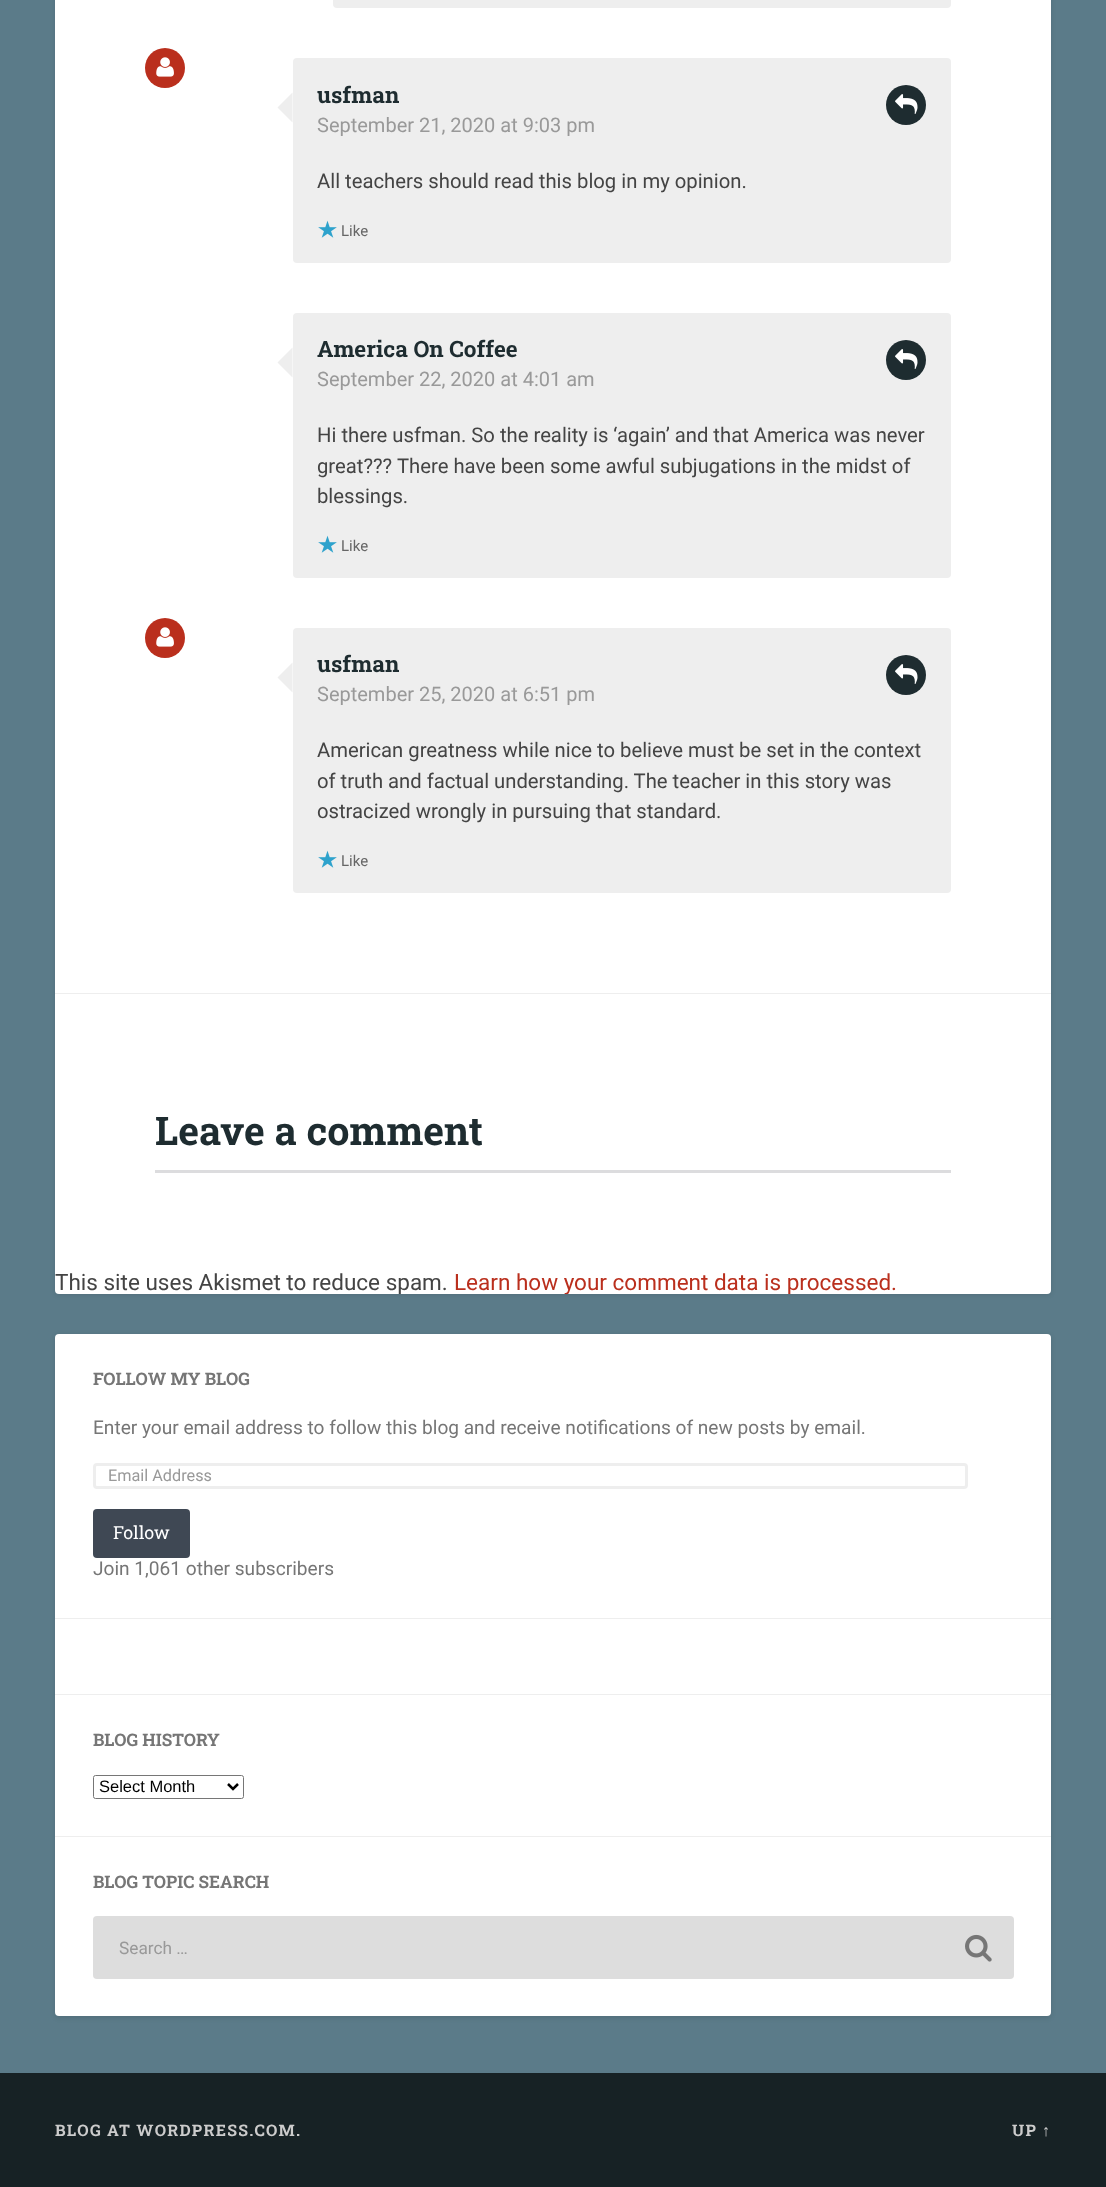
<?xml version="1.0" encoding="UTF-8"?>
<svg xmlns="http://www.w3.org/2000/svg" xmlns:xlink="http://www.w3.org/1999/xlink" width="1106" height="2187">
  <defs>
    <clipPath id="clip1"><rect x="55" y="-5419" width="996" height="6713" rx="4" /></clipPath>
  </defs>
  <rect width="100%" height="100%" fill="#5b7b89" />
  <rect x="55" y="-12" width="996" height="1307" rx="4" fill="#000000" fill-opacity="0.1" filter="blur(2.5px)" />
  <rect x="55" y="-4" width="996" height="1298" rx="4" fill="#ffffff" />
  <rect x="333" y="-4" width="618" height="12" rx="4" fill="#eeeeee" />
  <circle cx="165" cy="68" r="20" fill="#ba2f1d" />
  <image x="156" y="57" width="18" height="20" xlink:href="image1.png" />
  <rect x="293" y="58" width="658" height="205" rx="4" fill="#eeeeee" />
  <path d="M 292.5 92.5 v 30 l -15 -15 z" fill="#eeeeee" />
  <circle cx="906" cy="105" r="20" fill="#1e2c30" />
  <image x="895" y="94" width="23" height="20" xlink:href="image2.png" />
  <image x="318" y="220" width="19" height="18" xlink:href="image3.png" />
  <rect x="293" y="313" width="658" height="265" rx="4" fill="#eeeeee" />
  <path d="M 292.5 347.5 v 30 l -15 -15 z" fill="#eeeeee" />
  <circle cx="906" cy="360" r="20" fill="#1e2c30" />
  <image x="895" y="349" width="23" height="20" xlink:href="image2.png" />
  <image x="318" y="535" width="19" height="18" xlink:href="image3.png" />
  <circle cx="165" cy="638" r="20" fill="#ba2f1d" />
  <image x="156" y="627" width="18" height="20" xlink:href="image1.png" />
  <rect x="293" y="628" width="658" height="265" rx="4" fill="#eeeeee" />
  <path d="M 292.5 662.5 v 30 l -15 -15 z" fill="#eeeeee" />
  <circle cx="906" cy="675" r="20" fill="#1e2c30" />
  <image x="895" y="664" width="23" height="20" xlink:href="image2.png" />
  <image x="318" y="850" width="19" height="18" xlink:href="image3.png" />
  <rect x="55" y="993" width="996" height="1" fill="#eeeeee" />
  <rect x="155" y="1170" width="796" height="3" fill="#dcdcde" />
  <rect x="55" y="1335" width="996" height="683" rx="4" fill="#000000" fill-opacity="0.1" filter="blur(2.5px)" />
  <rect x="55" y="1334" width="996" height="682" rx="4" fill="#ffffff" />
  <rect x="94.5" y="1464.5" width="872" height="23" rx="2.5" fill="none" stroke="#eeeeee" stroke-width="3" />
  <rect x="93" y="1509" width="97" height="49" rx="4" fill="#3f4854" />
  <rect x="55" y="1618" width="996" height="1" fill="#eeeeee" />
  <rect x="55" y="1694" width="996" height="1" fill="#eeeeee" />
  <rect x="93.5" y="1775.5" width="150" height="23" rx="2" fill="none" stroke="#767676" />
  <path d="M 228 1784 l 5 5 l 5 -5" fill="none" stroke="#000000" stroke-width="2.5" />
  <rect x="55" y="1836" width="996" height="1" fill="#eeeeee" />
  <rect x="93" y="1916" width="921" height="63" rx="4" fill="#dddddd" />
  <image x="965" y="1934" width="27" height="28" xlink:href="image4.png" />
  <rect y="2073" width="1106" height="114" fill="#172225" />
  <text x="317" y="103" style="font-family: Roboto Slab; font-size: 22.5px; font-weight: bold; fill: #1e2c30">usfman</text>
  <text x="317" y="132" style="font-family: Roboto; font-size: 20px; fill: #999999">September 21, 2020 at 9:03 pm</text>
  <text x="317" y="188" style="font-family: Roboto; font-size: 20.25px; fill: #444444">All teachers should read this blog in my opinion.</text>
  <text x="341" y="236" style="font-family: Roboto; font-size: 15px; fill: #666666">Like</text>
  <text x="317" y="357" style="font-family: Roboto Slab; font-size: 22.5px; font-weight: bold; fill: #1e2c30">America On Coffee</text>
  <text x="317" y="386" style="font-family: Roboto; font-size: 20px; fill: #999999">September 22, 2020 at 4:01 am</text>
  <text x="317" y="442" style="font-family: Roboto; font-size: 20.25px; fill: #444444">Hi there usfman. So the reality is ‘again’ and that America was never</text>
  <text x="317" y="473" style="font-family: Roboto; font-size: 20.25px; fill: #444444">great???</text>
  <text x="397" y="473" style="font-family: Roboto; font-size: 20.25px; fill: #444444">There have been some awful subjugations in the midst of</text>
  <text x="317" y="503" style="font-family: Roboto; font-size: 20.25px; fill: #444444">blessings.</text>
  <text x="341" y="551" style="font-family: Roboto; font-size: 15px; fill: #666666">Like</text>
  <text x="317" y="672" style="font-family: Roboto Slab; font-size: 22.5px; font-weight: bold; fill: #1e2c30">usfman</text>
  <text x="317" y="701" style="font-family: Roboto; font-size: 20px; fill: #999999">September 25, 2020 at 6:51 pm</text>
  <text x="317" y="757" style="font-family: Roboto; font-size: 20.25px; fill: #444444">American greatness while nice to believe must be set in the context</text>
  <text x="317" y="788" style="font-family: Roboto; font-size: 20.25px; fill: #444444">of truth and factual understanding. The teacher in this story was</text>
  <text x="317" y="818" style="font-family: Roboto; font-size: 20.25px; fill: #444444">ostracized wrongly in pursuing that standard.</text>
  <text x="341" y="866" style="font-family: Roboto; font-size: 15px; fill: #666666">Like</text>
  <text x="155" y="1145" style="font-family: Roboto Slab; font-size: 39.5px; font-weight: bold; fill: #1e2c30">Leave a comment</text>
  <g clip-path="url(#clip1)">
    <text x="55" y="1290" style="font-family: Roboto; font-size: 22.5px; fill: #444444">This site uses Akismet to reduce spam.</text>
    <text x="454" y="1290" style="font-family: Roboto; font-size: 22.5px; fill: #ba2f1d">Learn how your comment data is processed.</text>
  </g>
  <text x="93" y="1385" style="font-family: Roboto Slab; font-size: 17.25px; font-weight: bold; fill: #767676">FOLLOW MY BLOG</text>
  <text x="93" y="1434" style="font-family: Roboto; font-size: 19.1px; fill: #767676">Enter your email address to follow this blog and receive notifications of new posts by email.</text>
  <text x="108" y="1481" style="font-family: Roboto; font-size: 16.25px; fill: #999999">Email Address</text>
  <text x="113" y="1539" style="font-family: Roboto Slab; font-size: 18px; fill: #ffffff">Follow</text>
  <text x="93" y="1575" style="font-family: Roboto; font-size: 19.1px; fill: #767676">Join 1,061 other subscribers</text>
  <text x="93" y="1746" style="font-family: Roboto Slab; font-size: 17.25px; font-weight: bold; fill: #767676">BLOG HISTORY</text>
  <text x="99" y="1792" style="font-family: Liberation Sans; font-size: 16.5px; fill: #000000">Select Month</text>
  <text x="93" y="1888" style="font-family: Roboto Slab; font-size: 17.25px; font-weight: bold; fill: #767676">BLOG TOPIC SEARCH</text>
  <text x="119" y="1954" style="font-family: Roboto; font-size: 17.25px; fill: #999999">Search …</text>
  <text x="55" y="2136" style="font-family: Roboto Slab; font-size: 16px; font-weight: bold; letter-spacing: 1.25px; fill: #cccccc">BLOG AT WORDPRESS.COM.</text>
  <text x="1012" y="2136" style="font-family: Roboto Slab; font-size: 16px; font-weight: bold; letter-spacing: 1.25px; fill: #cccccc">UP</text>
  <text x="1042" y="2136" style="font-family: Liberation Sans; font-size: 16px; font-weight: bold; letter-spacing: 1.25px; fill: #cccccc">↑</text>
</svg>
